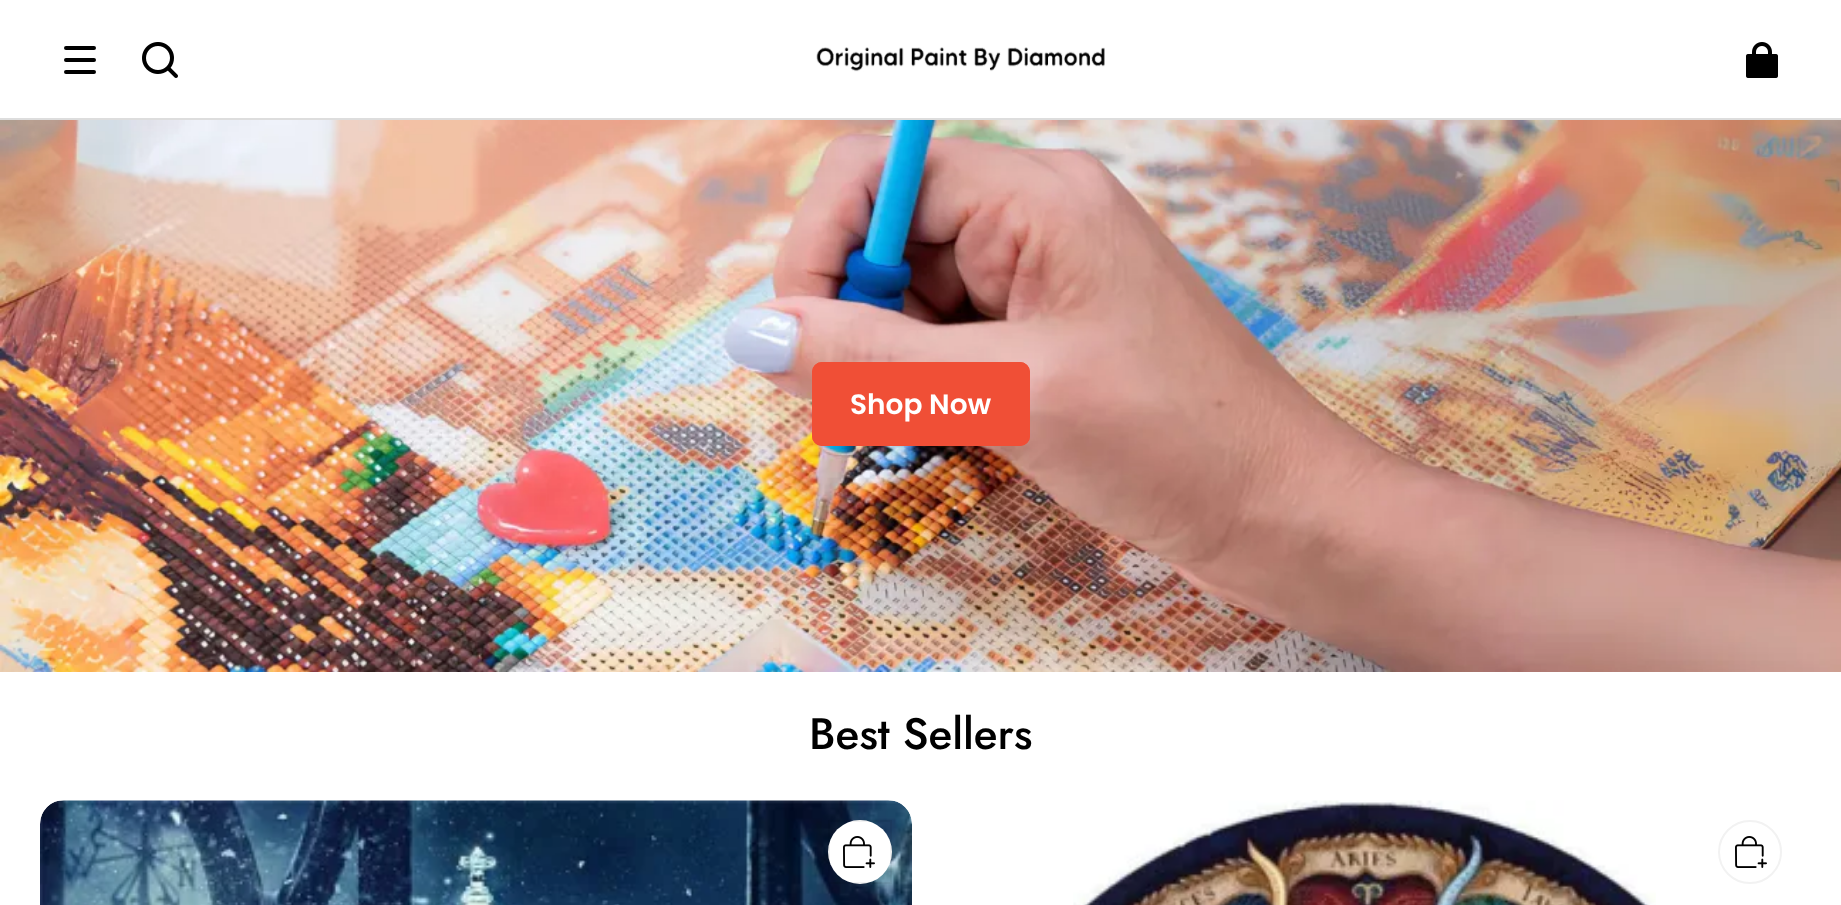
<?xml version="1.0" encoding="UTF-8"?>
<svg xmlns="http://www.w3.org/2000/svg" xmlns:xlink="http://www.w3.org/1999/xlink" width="1841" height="905">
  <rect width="100%" height="100%" fill="#ffffff" />
  <rect y="118" width="1841" height="2" fill="#dddddd" />
  <path d="M 66 48 h 28 m -28 12 h 28 m -28 12 h 28" fill="none" stroke="#000000" stroke-width="4" stroke-linecap="round" />
  <image x="142" y="42" width="36" height="36" xlink:href="image1.png" />
  <image x="816" y="47" width="289" height="25" xlink:href="image2.png" />
  <image x="1746" y="42" width="32" height="36" xlink:href="image3.png" />
  <image x="0" y="120" width="1841" height="552" xlink:href="image4.png" />
  <rect x="812" y="362" width="218" height="84" rx="10" fill="#f04f36" />
  <rect x="813" y="363" width="216" height="82" rx="9" fill="none" stroke="#f04f36" stroke-width="2" />
  <image x="40" y="800" width="872" height="105" xlink:href="image5.png" />
  <circle cx="860" cy="852" r="32" fill="#ffffff" />
  <rect x="829" y="821" width="62" height="62" fill="none" stroke="#000000" stroke-opacity="0.05" stroke-width="2" />
  <image x="843" y="836" width="32" height="32" xlink:href="image6.png" />
  <image x="1073" y="800" width="583" height="105" xlink:href="image7.png" />
  <circle cx="1750" cy="852" r="31" fill="none" stroke="#f2f2f2" stroke-width="2" />
  <image x="1735" y="836" width="32" height="32" xlink:href="image6.png" />
  <text x="850" y="414" style="font-family: Poppins; font-size: 28px; font-weight: 600; fill: #ffffff">Shop Now</text>
  <text x="809" y="749" style="font-family: Jost; font-size: 44px; font-weight: 500; fill: #000000">Best Sellers</text>
</svg>
